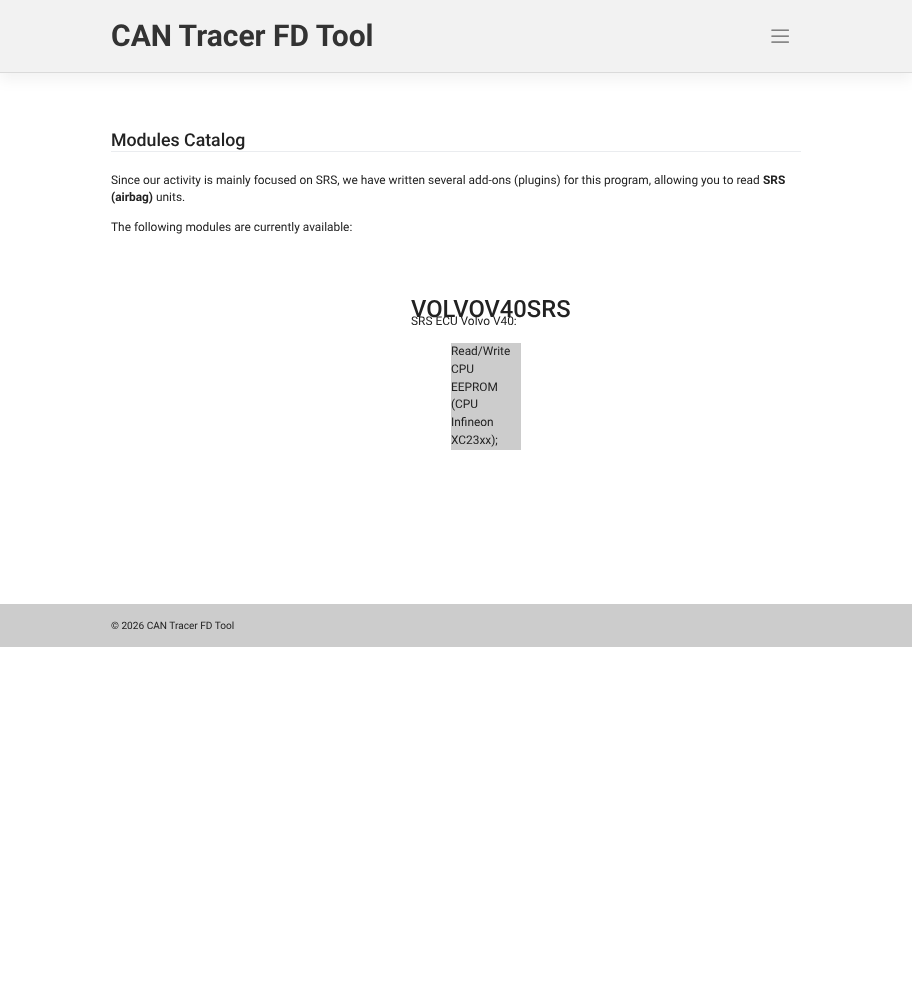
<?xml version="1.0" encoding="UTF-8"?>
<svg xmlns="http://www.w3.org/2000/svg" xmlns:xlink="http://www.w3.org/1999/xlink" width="912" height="982">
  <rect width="100%" height="100%" fill="#ffffff" />
  <rect y="7" width="912" height="73" fill="#000000" fill-opacity="0.05" filter="blur(7px)" />
  <rect width="912" height="72" fill="#f2f2f2" />
  <rect y="72" width="912" height="1" fill="#dadada" />
  <image x="771" y="29" width="18" height="14" xlink:href="image1.png" />
  <rect x="111" y="151" width="690" height="1" fill="#eaecef" />
  <rect x="451" y="343" width="70" height="107" fill="#cccccc" />
  <rect y="604" width="912" height="43" fill="#cccccc" />
  <text x="111" y="46" style="font-family: Roboto; font-size: 30px; font-weight: bold; fill: #333333">CAN Tracer FD Tool</text>
  <text x="111" y="146" style="font-family: Roboto; font-size: 17.75px; font-weight: 500; fill: #222222">Modules Catalog</text>
  <text x="111" y="184" style="font-family: Roboto; font-size: 11.9px; fill: #222222">Since our activity is mainly focused on SRS, we have written several add-ons (plugins) for this program, allowing you to read</text>
  <text x="763" y="184" style="font-family: Roboto; font-size: 11.9px; font-weight: bold; fill: #222222">SRS</text>
  <text x="111" y="201" style="font-family: Roboto; font-size: 11.9px; font-weight: bold; fill: #222222">(airbag)</text>
  <text x="156" y="201" style="font-family: Roboto; font-size: 11.9px; fill: #222222">units.</text>
  <text x="111" y="231" style="font-family: Roboto; font-size: 11.9px; fill: #222222">The following modules are currently available:</text>
  <text x="411" y="317" style="font-family: Roboto; font-size: 23.75px; font-weight: 500; fill: #222222">VOLVOV40SRS</text>
  <text x="411" y="325" style="font-family: Roboto; font-size: 11.9px; fill: #222222">SRS ECU Volvo V40:</text>
  <text x="451" y="355" style="font-family: Roboto; font-size: 11.9px; fill: #222222">Read/Write</text>
  <text x="451" y="373" style="font-family: Roboto; font-size: 11.9px; fill: #222222">CPU</text>
  <text x="451" y="391" style="font-family: Roboto; font-size: 11.9px; fill: #222222">EEPROM</text>
  <text x="451" y="408" style="font-family: Roboto; font-size: 11.9px; fill: #222222">(CPU</text>
  <text x="451" y="426" style="font-family: Roboto; font-size: 11.9px; fill: #222222">Infineon</text>
  <text x="451" y="444" style="font-family: Roboto; font-size: 11.9px; fill: #222222">XC23xx);</text>
  <text x="111" y="629" style="font-family: Roboto; font-size: 10.1px; fill: #222222">© 2026 CAN Tracer FD Tool</text>
</svg>
